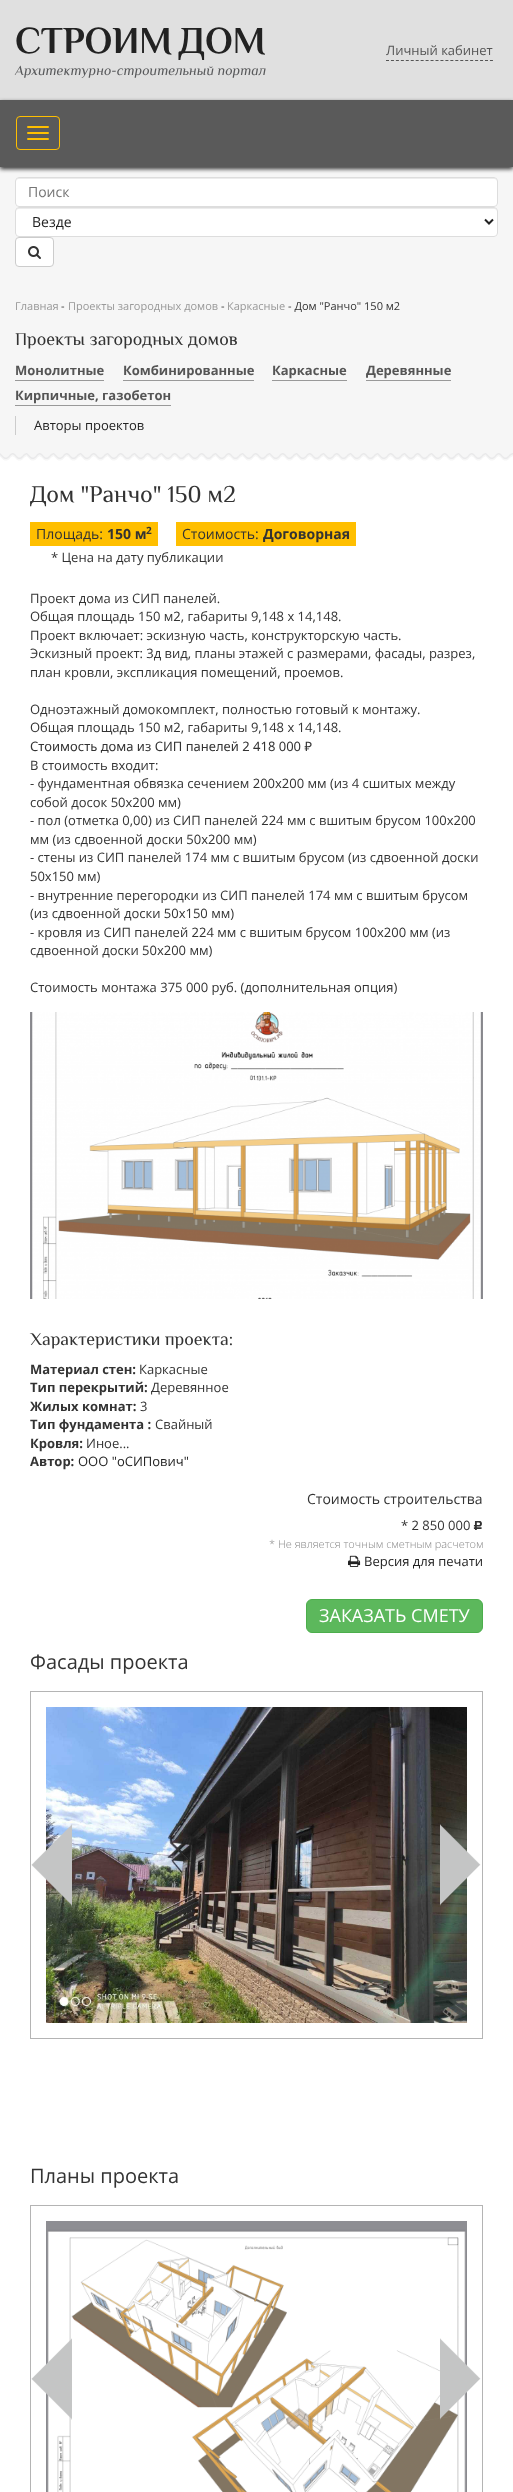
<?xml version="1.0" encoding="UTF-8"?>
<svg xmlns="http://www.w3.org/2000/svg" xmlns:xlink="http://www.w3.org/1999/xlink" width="513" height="2492">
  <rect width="100%" height="100%" fill="#ffffff" />
  <rect width="513" height="100" fill="#e0e0e0" />
  <path d="M 386 60.5 h 107" fill="none" stroke="#555555" stroke-dasharray="3 1.95" />
  <rect y="167" width="513" height="286" fill="#f6f6f6" />
  <rect y="102" width="513" height="67" fill="#333333" filter="blur(2px)" />
  <rect y="100" width="513" height="67" fill="#5a5a5a" />
  <rect x="16.5" y="116.5" width="43" height="33" rx="3.5" fill="none" stroke="#ffbf00" />
  <rect x="27" y="126" width="22" height="2" rx="1" fill="#ffbf00" />
  <rect x="27" y="132" width="22" height="2" rx="1" fill="#ffbf00" />
  <rect x="27" y="138" width="22" height="2" rx="1" fill="#ffbf00" />
  <rect x="15" y="177" width="483" height="30" rx="4" fill="#ffffff" />
  <path d="M 19 179 h 475 c 2 0 3 1 3 3 v -1 c 0 -2 -1 -3 -3 -3 h -475 c -2 0 -3 1 -3 3 v 1 c 0 -2 1 -3 3 -3 z" fill="#ececec" />
  <rect x="15.5" y="177.5" width="482" height="29" rx="3.5" fill="none" stroke="#dddddd" />
  <rect x="15" y="207" width="483" height="30" rx="4" fill="#ffffff" />
  <path d="M 19 209 h 475 c 2 0 3 1 3 3 v -1 c 0 -2 -1 -3 -3 -3 h -475 c -2 0 -3 1 -3 3 v 1 c 0 -2 1 -3 3 -3 z" fill="#ececec" />
  <rect x="15.5" y="207.5" width="482" height="29" rx="3.5" fill="none" stroke="#dddddd" />
  <path d="M 485 219.5 l 4 4 l 4 -4" fill="none" stroke="#222222" stroke-width="2" />
  <rect x="15.5" y="237.5" width="38" height="29" rx="3.5" fill="#ffffff" stroke="#cccccc" />
  <image x="28" y="246" width="13" height="13" xlink:href="image1.png" />
  <image x="0" y="453" width="513" height="8" xlink:href="image2.png" />
  <rect x="15" y="380" width="89" height="1" fill="#999999" />
  <rect x="123" y="380" width="131" height="1" fill="#999999" />
  <rect x="272" y="380" width="75" height="1" fill="#999999" />
  <rect x="366" y="380" width="85" height="1" fill="#999999" />
  <rect x="15" y="405" width="156" height="1" fill="#999999" />
  <rect x="15" y="416" width="1" height="19" fill="#cccccc" />
  <rect x="30" y="522" width="128" height="24" fill="#ffbf00" />
  <rect x="176" y="522" width="180" height="24" fill="#ffbf00" />
  <image x="30" y="1012" width="453" height="287" xlink:href="image3.png" />
  <image x="348" y="1555" width="13" height="12" xlink:href="image4.png" />
  <rect x="306.5" y="1599.5" width="176" height="33" rx="5.5" fill="#5cb85c" stroke="#4cae4c" />
  <rect x="30.5" y="1691.5" width="452" height="347" fill="none" stroke="#b4b4b4" />
  <image x="46" y="1707" width="421" height="316" xlink:href="image5.png" />
  <image x="31" y="1824" width="41" height="82" xlink:href="image6.png" />
  <image x="440" y="1824" width="41" height="82" xlink:href="image7.png" />
  <rect x="30.5" y="2205.5" width="452" height="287" fill="none" stroke="#b4b4b4" />
  <image x="46" y="2221" width="421" height="271" xlink:href="image8.png" />
  <image x="31" y="2338" width="41" height="82" xlink:href="image9.png" />
  <image x="440" y="2338" width="41" height="82" xlink:href="image10.png" />
  <text x="15" y="53" word-spacing="-3" style="font-family: Philosopher; font-size: 38px; font-weight: bold; fill: #222222">СТРОИМ ДОМ</text>
  <text x="15" y="75" style="font-family: Philosopher; font-size: 14px; font-style: italic; fill: #58595b">Архитектурно-строительный портал</text>
  <text x="386" y="55" style="font-family: Open Sans; font-size: 13px; fill: #555555">Личный кабинет</text>
  <text x="28" y="197" style="font-family: Open Sans; font-size: 14px; fill: #757575">Поиск</text>
  <text x="32" y="227" style="font-family: Open Sans; font-size: 14px; fill: #222222">Везде</text>
  <text x="15" y="310" style="font-family: Open Sans; font-size: 11px; fill: #999999">Главная</text>
  <text x="61" y="310" style="font-family: Open Sans; font-size: 11px; fill: #333333">-</text>
  <text x="68" y="310" style="font-family: Open Sans; font-size: 11px; fill: #999999">Проекты загородных домов</text>
  <text x="221" y="310" style="font-family: Open Sans; font-size: 11px; fill: #333333">-</text>
  <text x="227" y="310" style="font-family: Open Sans; font-size: 11px; fill: #999999">Каркасные</text>
  <text x="288" y="310" style="font-family: Open Sans; font-size: 11px; fill: #333333">- Дом "Ранчо" 150 м2</text>
  <text x="15" y="345" style="font-family: Philosopher; font-size: 18px; fill: #333333">Проекты загородных домов</text>
  <text x="15" y="375" style="font-family: Open Sans; font-size: 13px; font-weight: bold; fill: #555555">Монолитные</text>
  <text x="123" y="375" style="font-family: Open Sans; font-size: 13px; font-weight: bold; fill: #555555">Комбинированные</text>
  <text x="272" y="375" style="font-family: Open Sans; font-size: 13px; font-weight: bold; fill: #555555">Каркасные</text>
  <text x="366" y="375" style="font-family: Open Sans; font-size: 13px; font-weight: bold; fill: #555555">Деревянные</text>
  <text x="15" y="400" style="font-family: Open Sans; font-size: 13px; font-weight: bold; fill: #555555">Кирпичные, газобетон</text>
  <text x="34" y="430" style="font-family: Open Sans; font-size: 13px; fill: #222222">Авторы проектов</text>
  <text x="30" y="502" style="font-family: Philosopher; font-size: 24px; fill: #333333">Дом "Ранчо" 150 м2</text>
  <text x="36" y="539" style="font-family: Open Sans; font-size: 14px; fill: #333333">Площадь:</text>
  <text x="107" y="539" style="font-family: Open Sans; font-size: 14px; font-weight: bold; fill: #333333">150 м</text>
  <text x="146" y="534" style="font-family: Open Sans; font-size: 10px; font-weight: bold; fill: #333333">2</text>
  <text x="182" y="539" style="font-family: Open Sans; font-size: 14px; fill: #333333">Стоимость:</text>
  <text x="263" y="539" style="font-family: Open Sans; font-size: 14px; font-weight: bold; fill: #333333">Договорная</text>
  <text x="51" y="562" style="font-family: Open Sans; font-size: 13px; fill: #333333">* Цена на дату публикации</text>
  <text x="30" y="603" style="font-family: Open Sans; font-size: 13px; fill: #333333">Проект дома из СИП панелей.</text>
  <text x="30" y="621" style="font-family: Open Sans; font-size: 13px; fill: #333333">Общая площадь 150 м2, габариты 9,148 х 14,148.</text>
  <text x="30" y="640" style="font-family: Open Sans; font-size: 13px; fill: #333333">Проект включает: эскизную часть, конструкторскую часть.</text>
  <text x="30" y="658" style="font-family: Open Sans; font-size: 13px; fill: #333333">Эскизный проект: 3д вид, планы этажей с размерами, фасады, разрез,</text>
  <text x="30" y="677" style="font-family: Open Sans; font-size: 13px; fill: #333333">план кровли, экспликация помещений, проемов.</text>
  <text x="30" y="714" style="font-family: Open Sans; font-size: 13px; fill: #333333">Одноэтажный домокомплект, полностью готовый к монтажу.</text>
  <text x="30" y="732" style="font-family: Open Sans; font-size: 13px; fill: #333333">Общая площадь 150 м2, габариты 9,148 х 14,148.</text>
  <text x="30" y="751" style="font-family: Noto Sans; font-size: 13px; fill: #333333">Стоимость дома из СИП панелей 2 418 000 ₽</text>
  <text x="30" y="770" style="font-family: Open Sans; font-size: 13px; fill: #333333">В стоимость входит:</text>
  <text x="30" y="788" style="font-family: Open Sans; font-size: 13px; fill: #333333">- фундаментная обвязка сечением 200х200 мм (из 4 сшитых между</text>
  <text x="30" y="807" style="font-family: Open Sans; font-size: 13px; fill: #333333">собой досок 50х200 мм)</text>
  <text x="30" y="825" style="font-family: Open Sans; font-size: 13px; fill: #333333">- пол (отметка 0,00) из СИП панелей 224 мм с вшитым брусом 100х200</text>
  <text x="30" y="844" style="font-family: Open Sans; font-size: 13px; fill: #333333">мм (из сдвоенной доски 50х200 мм)</text>
  <text x="30" y="862" style="font-family: Open Sans; font-size: 13px; fill: #333333">- стены из СИП панелей 174 мм с вшитым брусом (из сдвоенной доски</text>
  <text x="30" y="881" style="font-family: Open Sans; font-size: 13px; fill: #333333">50х150 мм)</text>
  <text x="30" y="900" style="font-family: Open Sans; font-size: 13px; fill: #333333">- внутренние перегородки из СИП панелей 174 мм с вшитым брусом</text>
  <text x="30" y="918" style="font-family: Open Sans; font-size: 13px; fill: #333333">(из сдвоенной доски 50х150 мм)</text>
  <text x="30" y="937" style="font-family: Open Sans; font-size: 13px; fill: #333333">- кровля из СИП панелей 224 мм с вшитым брусом 100х200 мм (из</text>
  <text x="30" y="955" style="font-family: Open Sans; font-size: 13px; fill: #333333">сдвоенной доски 50х200 мм)</text>
  <text x="30" y="992" style="font-family: Open Sans; font-size: 13px; fill: #333333">Стоимость монтажа 375 000 руб. (дополнительная опция)</text>
  <text x="30" y="1345" style="font-family: Philosopher; font-size: 18px; fill: #333333">Характеристики проекта:</text>
  <text x="30" y="1374" style="font-family: Open Sans; font-size: 13px; font-weight: bold; fill: #333333">Материал стен:</text>
  <text x="139" y="1374" style="font-family: Open Sans; font-size: 13px; fill: #333333">Каркасные</text>
  <text x="30" y="1392" style="font-family: Open Sans; font-size: 13px; font-weight: bold; fill: #333333">Тип перекрытий:</text>
  <text x="151" y="1392" style="font-family: Open Sans; font-size: 13px; fill: #333333">Деревянное</text>
  <text x="30" y="1411" style="font-family: Open Sans; font-size: 13px; font-weight: bold; fill: #333333">Жилых комнат:</text>
  <text x="140" y="1411" style="font-family: Open Sans; font-size: 13px; fill: #333333">3</text>
  <text x="30" y="1429" style="font-family: Open Sans; font-size: 13px; font-weight: bold; fill: #333333">Тип фундамента :</text>
  <text x="155" y="1429" style="font-family: Open Sans; font-size: 13px; fill: #333333">Свайный</text>
  <text x="30" y="1448" style="font-family: Open Sans; font-size: 13px; font-weight: bold; fill: #333333">Кровля:</text>
  <text x="86" y="1448" style="font-family: Open Sans; font-size: 13px; fill: #333333">Иное...</text>
  <text x="30" y="1466" style="font-family: Open Sans; font-size: 13px; font-weight: bold; fill: #333333">Автор:</text>
  <text x="78" y="1466" style="font-family: Open Sans; font-size: 13px; fill: #222222">ООО "оСИПович"</text>
  <text x="307" y="1504" style="font-family: Open Sans; font-size: 14px; fill: #333333">Стоимость строительства</text>
  <text x="401" y="1530" style="font-family: Open Sans; font-size: 13px; fill: #333333">* 2 850 000</text>
  <text x="473" y="1530" style="font-family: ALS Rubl; font-size: 13px; fill: #333333">c</text>
  <text x="269" y="1548" style="font-family: Open Sans; font-size: 11px; font-weight: 300; fill: #888888">* Не является точным сметным расчетом</text>
  <text x="364" y="1566" style="font-family: Open Sans; font-size: 13px; fill: #222222">Версия для печати</text>
  <text x="319" y="1622" style="font-family: Open Sans; font-size: 18px; fill: #ffffff">ЗАКАЗАТЬ СМЕТУ</text>
  <text x="30" y="1669" style="font-family: Open Sans; font-size: 20px; fill: #333333">Фасады проекта</text>
  <text x="30" y="2183" style="font-family: Open Sans; font-size: 20px; fill: #333333">Планы проекта</text>
</svg>
